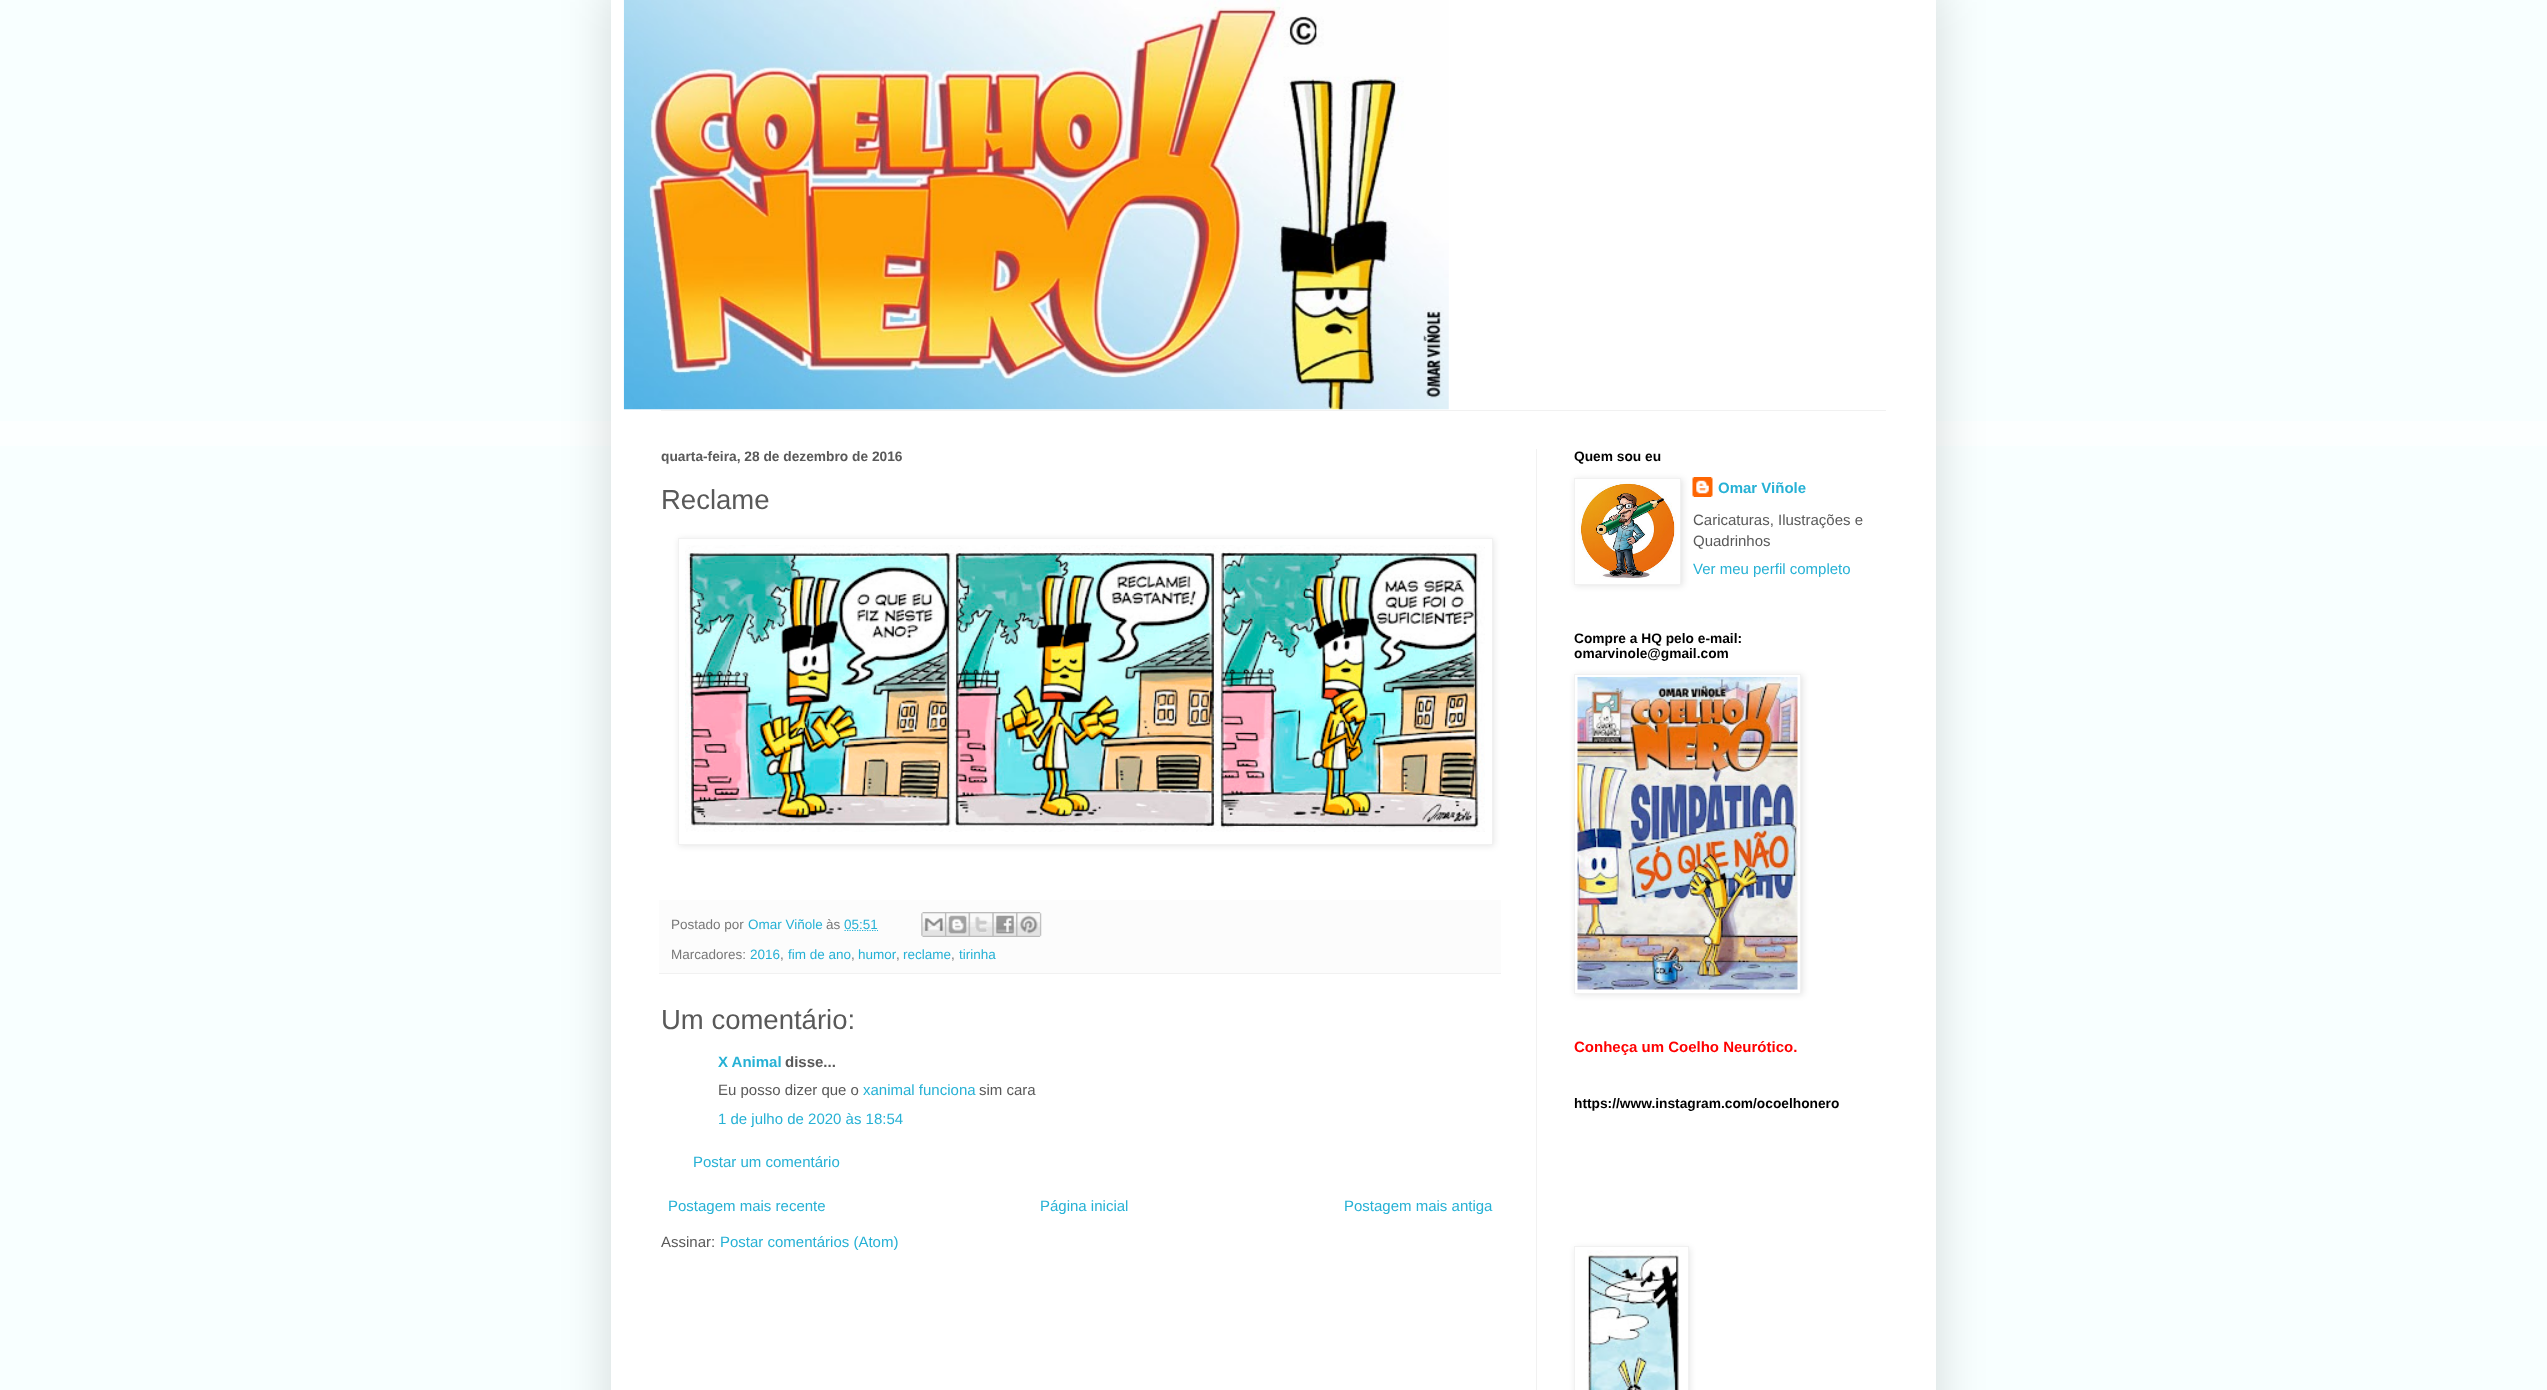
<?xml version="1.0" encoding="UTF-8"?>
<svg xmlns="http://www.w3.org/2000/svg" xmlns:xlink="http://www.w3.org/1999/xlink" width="2547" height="1390">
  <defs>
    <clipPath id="clip1"><path d="M 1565 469 h 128 v 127 h -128 z m 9 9 h 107 v 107 h -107 z" clip-rule="evenodd" /></clipPath>
  </defs>
  <rect width="100%" height="100%" fill="#f8ffff" />
  <image x="0" y="421" width="2547" height="25" xlink:href="image1.png" />
  <rect x="611" y="-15" width="1325" height="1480" fill="#000000" fill-opacity="0.15" filter="blur(25px)" />
  <rect x="611" width="1325" height="1390" fill="#ffffff" />
  <image x="623" y="0" width="826" height="410" xlink:href="image2.png" />
  <rect x="661" y="410" width="1225" height="1" fill="#f1f1f1" />
  <rect x="1536" y="449" width="1" height="941" fill="#f1f1f1" />
  <rect x="679" y="539" width="815" height="307" fill="#000000" fill-opacity="0.1" filter="blur(3px)" />
  <rect x="678.5" y="538.5" width="814" height="306" fill="#ffffff" stroke="#f1f1f1" />
  <image x="685" y="545" width="800" height="287" xlink:href="image3.png" />
  <rect x="659" y="900" width="842" height="73" fill="#fcfcfc" />
  <rect x="659" y="973" width="842" height="1" fill="#f1f1f1" />
  <path d="M 844.5 930.5 h 33.5" fill="none" stroke="#26b1d5" stroke-width="1.2" stroke-dasharray="1.25 1.25" />
  <image x="921" y="912" width="24" height="25" xlink:href="image4.png" />
  <image x="945" y="912" width="24" height="25" xlink:href="image5.png" />
  <image x="968" y="912" width="25" height="25" xlink:href="image6.png" />
  <image x="992" y="912" width="25" height="25" xlink:href="image7.png" />
  <image x="1016" y="912" width="26" height="25" xlink:href="image8.png" />
  <image x="1692" y="477" width="21" height="20" xlink:href="image10.png" />
  <g clip-path="url(#clip1)">
    <rect x="1575" y="479" width="108" height="107" fill="#000000" fill-opacity="0.1" filter="blur(3px)" />
  </g>
  <rect x="1574.5" y="478.5" width="106" height="106" fill="none" stroke="#f1f1f1" />
  <image x="1578" y="481" width="98" height="98" xlink:href="image9.png" />
  <rect x="1575" y="675" width="228" height="320" fill="#000000" fill-opacity="0.1" filter="blur(3px)" />
  <rect x="1574.5" y="674.5" width="226" height="319" fill="#ffffff" stroke="#f1f1f1" />
  <image x="1577" y="677" width="221" height="313" xlink:href="image11.png" />
  <rect x="1575" y="1248" width="115" height="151" fill="#000000" fill-opacity="0.1" filter="blur(3px)" />
  <rect x="1574.5" y="1246.5" width="114" height="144" fill="#ffffff" stroke="#f1f1f1" />
  <image x="1587" y="1250" width="92" height="140" xlink:href="image12.png" />
  <text x="661" y="461" style="font-family: Liberation Sans; font-size: 13.75px; font-weight: bold; fill: #595959">quarta-feira, 28 de dezembro de 2016</text>
  <text x="661" y="509" style="font-family: Liberation Sans; font-size: 27.5px; fill: #595959">Reclame</text>
  <text x="671" y="929" style="font-family: Liberation Sans; font-size: 13.5px; fill: #787878">Postado por</text>
  <text x="748" y="929" style="font-family: Liberation Sans; font-size: 13.5px; fill: #26b1d5">Omar Viñole</text>
  <text x="826" y="929" style="font-family: Liberation Sans; font-size: 13.5px; fill: #787878">às</text>
  <text x="844" y="929" style="font-family: Liberation Sans; font-size: 13.5px; fill: #26b1d5">05:51</text>
  <text x="671" y="959" style="font-family: Liberation Sans; font-size: 13.5px; fill: #787878">Marcadores:</text>
  <text x="750" y="959" style="font-family: Liberation Sans; font-size: 13.5px; fill: #26b1d5">2016</text>
  <text x="780" y="959" style="font-family: Liberation Sans; font-size: 13.5px; fill: #787878">,</text>
  <text x="788" y="959" style="font-family: Liberation Sans; font-size: 13.5px; fill: #26b1d5">fim de ano</text>
  <text x="851" y="959" style="font-family: Liberation Sans; font-size: 13.5px; fill: #787878">,</text>
  <text x="858" y="959" style="font-family: Liberation Sans; font-size: 13.5px; fill: #26b1d5">humor</text>
  <text x="896" y="959" style="font-family: Liberation Sans; font-size: 13.5px; fill: #787878">,</text>
  <text x="903" y="959" style="font-family: Liberation Sans; font-size: 13.5px; fill: #26b1d5">reclame</text>
  <text x="951" y="959" style="font-family: Liberation Sans; font-size: 13.5px; fill: #787878">,</text>
  <text x="959" y="959" style="font-family: Liberation Sans; font-size: 13.5px; fill: #26b1d5">tirinha</text>
  <text x="661" y="1029" style="font-family: Liberation Sans; font-size: 27.5px; fill: #595959">Um comentário:</text>
  <text x="718" y="1067" style="font-family: Liberation Sans; font-size: 15px; font-weight: bold; fill: #26b1d5">X Animal</text>
  <text x="785" y="1067" style="font-family: Liberation Sans; font-size: 15px; font-weight: bold; fill: #595959">disse...</text>
  <text x="718" y="1095" style="font-family: Liberation Sans; font-size: 15px; fill: #595959">Eu posso dizer que o</text>
  <text x="863" y="1095" style="font-family: Liberation Sans; font-size: 15px; fill: #26b1d5">xanimal funciona</text>
  <text x="979" y="1095" style="font-family: Liberation Sans; font-size: 15px; fill: #595959">sim cara</text>
  <text x="718" y="1124" style="font-family: Liberation Sans; font-size: 15px; fill: #26b1d5">1 de julho de 2020 às 18:54</text>
  <text x="693" y="1167" style="font-family: Liberation Sans; font-size: 15px; fill: #26b1d5">Postar um comentário</text>
  <text x="668" y="1211" style="font-family: Liberation Sans; font-size: 15px; fill: #26b1d5">Postagem mais recente</text>
  <text x="1040" y="1211" style="font-family: Liberation Sans; font-size: 15px; fill: #26b1d5">Página inicial</text>
  <text x="1344" y="1211" style="font-family: Liberation Sans; font-size: 15px; fill: #26b1d5">Postagem mais antiga</text>
  <text x="661" y="1247" style="font-family: Liberation Sans; font-size: 15px; fill: #595959">Assinar:</text>
  <text x="720" y="1247" style="font-family: Liberation Sans; font-size: 15px; fill: #26b1d5">Postar comentários (Atom)</text>
  <text x="1574" y="461" style="font-family: Liberation Sans; font-size: 13.75px; font-weight: bold; fill: #000000">Quem sou eu</text>
  <text x="1718" y="493" style="font-family: Liberation Sans; font-size: 15px; font-weight: bold; fill: #26b1d5">Omar Viñole</text>
  <text x="1693" y="525" style="font-family: Liberation Sans; font-size: 15px; fill: #595959">Caricaturas, Ilustrações e</text>
  <text x="1693" y="546" style="font-family: Liberation Sans; font-size: 15px; fill: #595959">Quadrinhos</text>
  <text x="1693" y="574" style="font-family: Liberation Sans; font-size: 15px; fill: #26b1d5">Ver meu perfil completo</text>
  <text x="1574" y="643" style="font-family: Liberation Sans; font-size: 13.75px; font-weight: bold; fill: #000000">Compre a HQ pelo e-mail:</text>
  <text x="1574" y="658" style="font-family: Liberation Sans; font-size: 13.75px; font-weight: bold; fill: #000000">omarvinole@gmail.com</text>
  <text x="1574" y="1052" style="font-family: Liberation Sans; font-size: 15px; font-weight: bold; fill: #ff0000">Conheça um Coelho Neurótico.</text>
  <text x="1574" y="1108" style="font-family: Liberation Sans; font-size: 13.75px; font-weight: bold; fill: #000000">https://www.instagram.com/ocoelhonero</text>
</svg>
